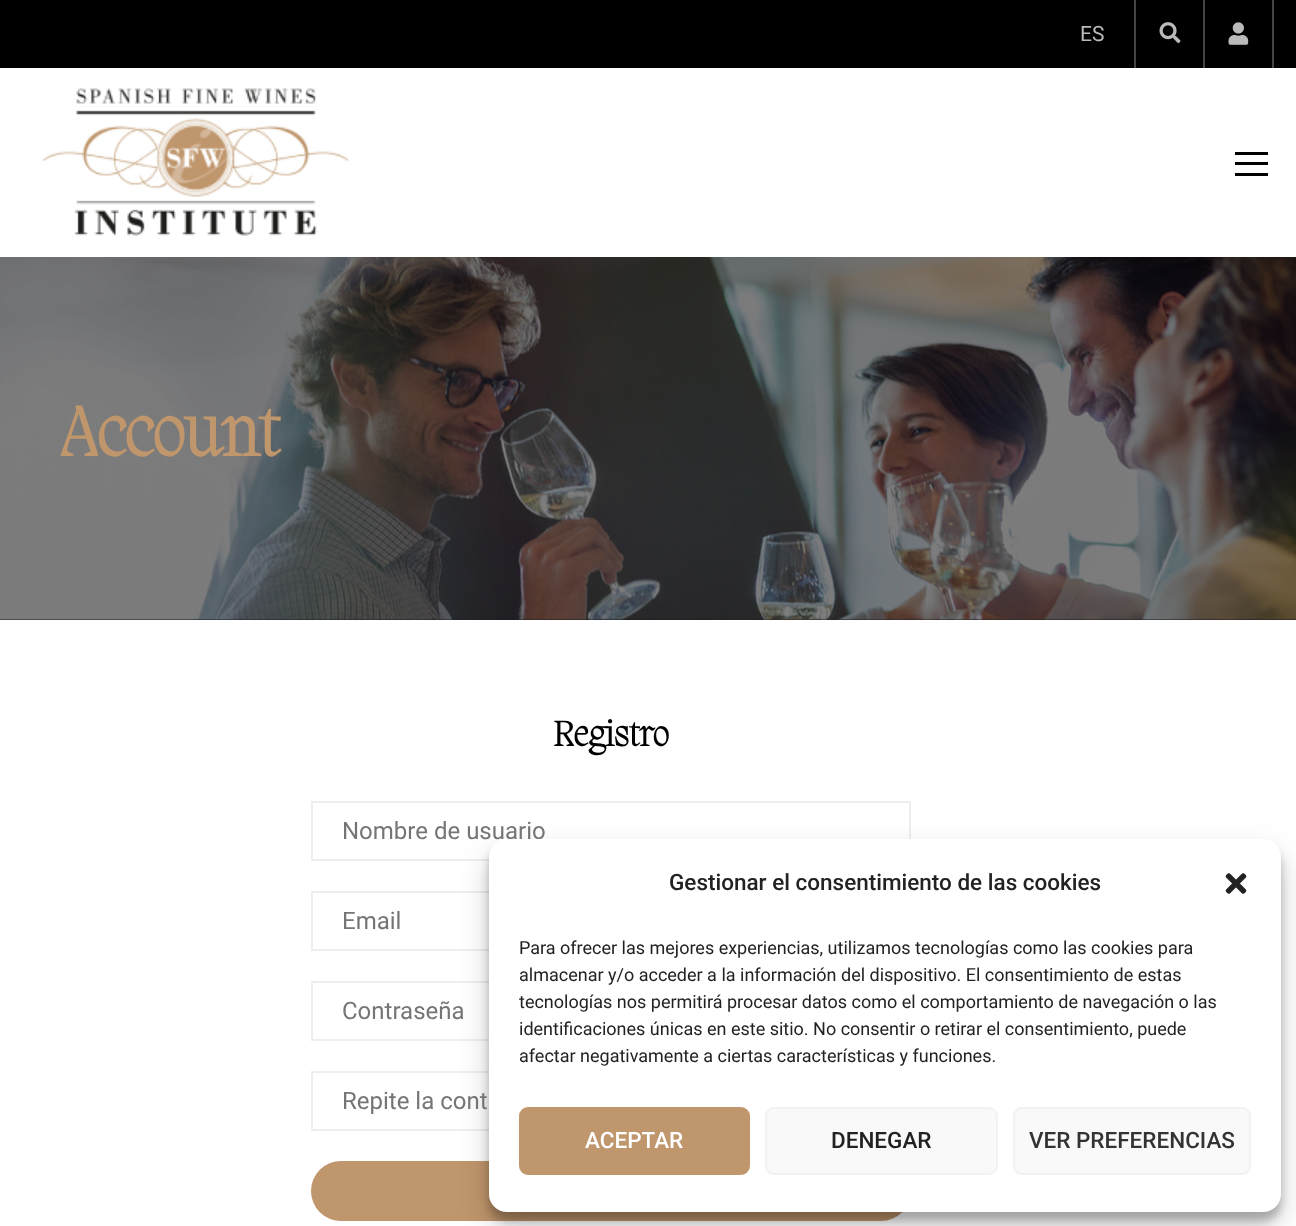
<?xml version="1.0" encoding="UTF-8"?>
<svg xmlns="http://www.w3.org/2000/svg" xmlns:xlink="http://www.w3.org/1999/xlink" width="1296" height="1226">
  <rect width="100%" height="100%" fill="#ffffff" />
  <rect width="1296" height="68" fill="#000000" />
  <rect x="1134" width="2" height="68" fill="#444444" />
  <image x="1159" y="22" width="22" height="22" xlink:href="image1.png" />
  <rect x="1272" width="2" height="68" fill="#444444" />
  <rect x="1203" width="2" height="68" fill="#444444" />
  <image x="1228" y="22" width="21" height="23" xlink:href="image2.png" />
  <image x="42" y="88" width="308" height="148" xlink:href="image3.png" />
  <rect x="1235" y="152" width="33" height="3" fill="#000000" />
  <rect x="1235" y="162" width="33" height="3" fill="#000000" />
  <rect x="1235" y="173" width="33" height="3" fill="#000000" />
  <rect y="619" width="1296" height="1" fill="#1c1f22" />
  <image x="0" y="257" width="1296" height="363" xlink:href="image4.png" />
  <rect x="312" y="802" width="598" height="58" fill="none" stroke="#eeeeee" stroke-width="2" />
  <rect x="312" y="892" width="598" height="58" fill="none" stroke="#eeeeee" stroke-width="2" />
  <rect x="312" y="982" width="598" height="58" fill="none" stroke="#eeeeee" stroke-width="2" />
  <rect x="312" y="1072" width="598" height="58" fill="none" stroke="#eeeeee" stroke-width="2" />
  <rect x="311" y="1161" width="600" height="60" rx="30" fill="#c0966c" />
  <rect x="489" y="848" width="792" height="373" rx="18" fill="#000000" fill-opacity="0.23" filter="blur(4.5px)" />
  <rect x="489" y="854" width="792" height="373" rx="18" fill="#000000" fill-opacity="0.19" filter="blur(15px)" />
  <text x="1080" y="41" style="font-family: Roboto; font-size: 21px; fill: #bababa">ES</text>
  <text x="60" y="456" style="font-family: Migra; font-size: 72px; font-weight: bold; fill: #c0966c">Account</text>
  <text x="553" y="746" style="font-family: Migra; font-size: 36px; font-weight: bold; fill: #000000">Registro</text>
  <text x="342" y="839" style="font-family: Roboto; font-size: 24px; fill: #757575">Nombre de usuario</text>
  <text x="342" y="929" style="font-family: Roboto; font-size: 24px; fill: #757575">Email</text>
  <text x="342" y="1019" style="font-family: Roboto; font-size: 24px; fill: #757575">Contraseña</text>
  <text x="342" y="1109" style="font-family: Roboto; font-size: 24px; fill: #757575">Repite la cont</text>
  <rect x="489" y="839" width="792" height="373" rx="18" fill="#ffffff" />
  <text x="669" y="890" style="font-family: Roboto; font-size: 22.5px; font-weight: 500; fill: #222222">Gestionar el consentimiento de las cookies</text>
  <image x="1225" y="873" width="22" height="21" xlink:href="image5.png" />
  <text x="519" y="954" style="font-family: Roboto; font-size: 18px; fill: #222222">Para ofrecer las mejores experiencias, utilizamos tecnologías como las cookies para</text>
  <text x="519" y="981" style="font-family: Roboto; font-size: 18px; fill: #222222">almacenar y/o acceder a la información del dispositivo. El consentimiento de estas</text>
  <text x="519" y="1008" style="font-family: Roboto; font-size: 18px; fill: #222222">tecnologías nos permitirá procesar datos como el comportamiento de navegación o las</text>
  <text x="519" y="1035" style="font-family: Roboto; font-size: 18px; fill: #222222">identificaciones únicas en este sitio. No consentir o retirar el consentimiento, puede</text>
  <text x="519" y="1062" style="font-family: Roboto; font-size: 18px; fill: #222222">afectar negativamente a ciertas características y funciones.</text>
  <rect x="520" y="1108" width="229" height="66" rx="8" fill="#c0966c" stroke="#c0966c" stroke-width="2" />
  <text x="585" y="1148" style="font-family: Roboto; font-size: 22.5px; font-weight: 500; fill: #ffffff">ACEPTAR</text>
  <rect x="766" y="1108" width="231" height="66" rx="8" fill="#f9f9f9" stroke="#f2f2f2" stroke-width="2" />
  <text x="831" y="1148" style="font-family: Roboto; font-size: 22.5px; font-weight: 500; fill: #222222">DENEGAR</text>
  <rect x="1014" y="1108" width="236" height="66" rx="8" fill="#f9f9f9" stroke="#f2f2f2" stroke-width="2" />
  <text x="1029" y="1148" style="font-family: Roboto; font-size: 22.5px; font-weight: 500; fill: #333333">VER PREFERENCIAS</text>
</svg>
